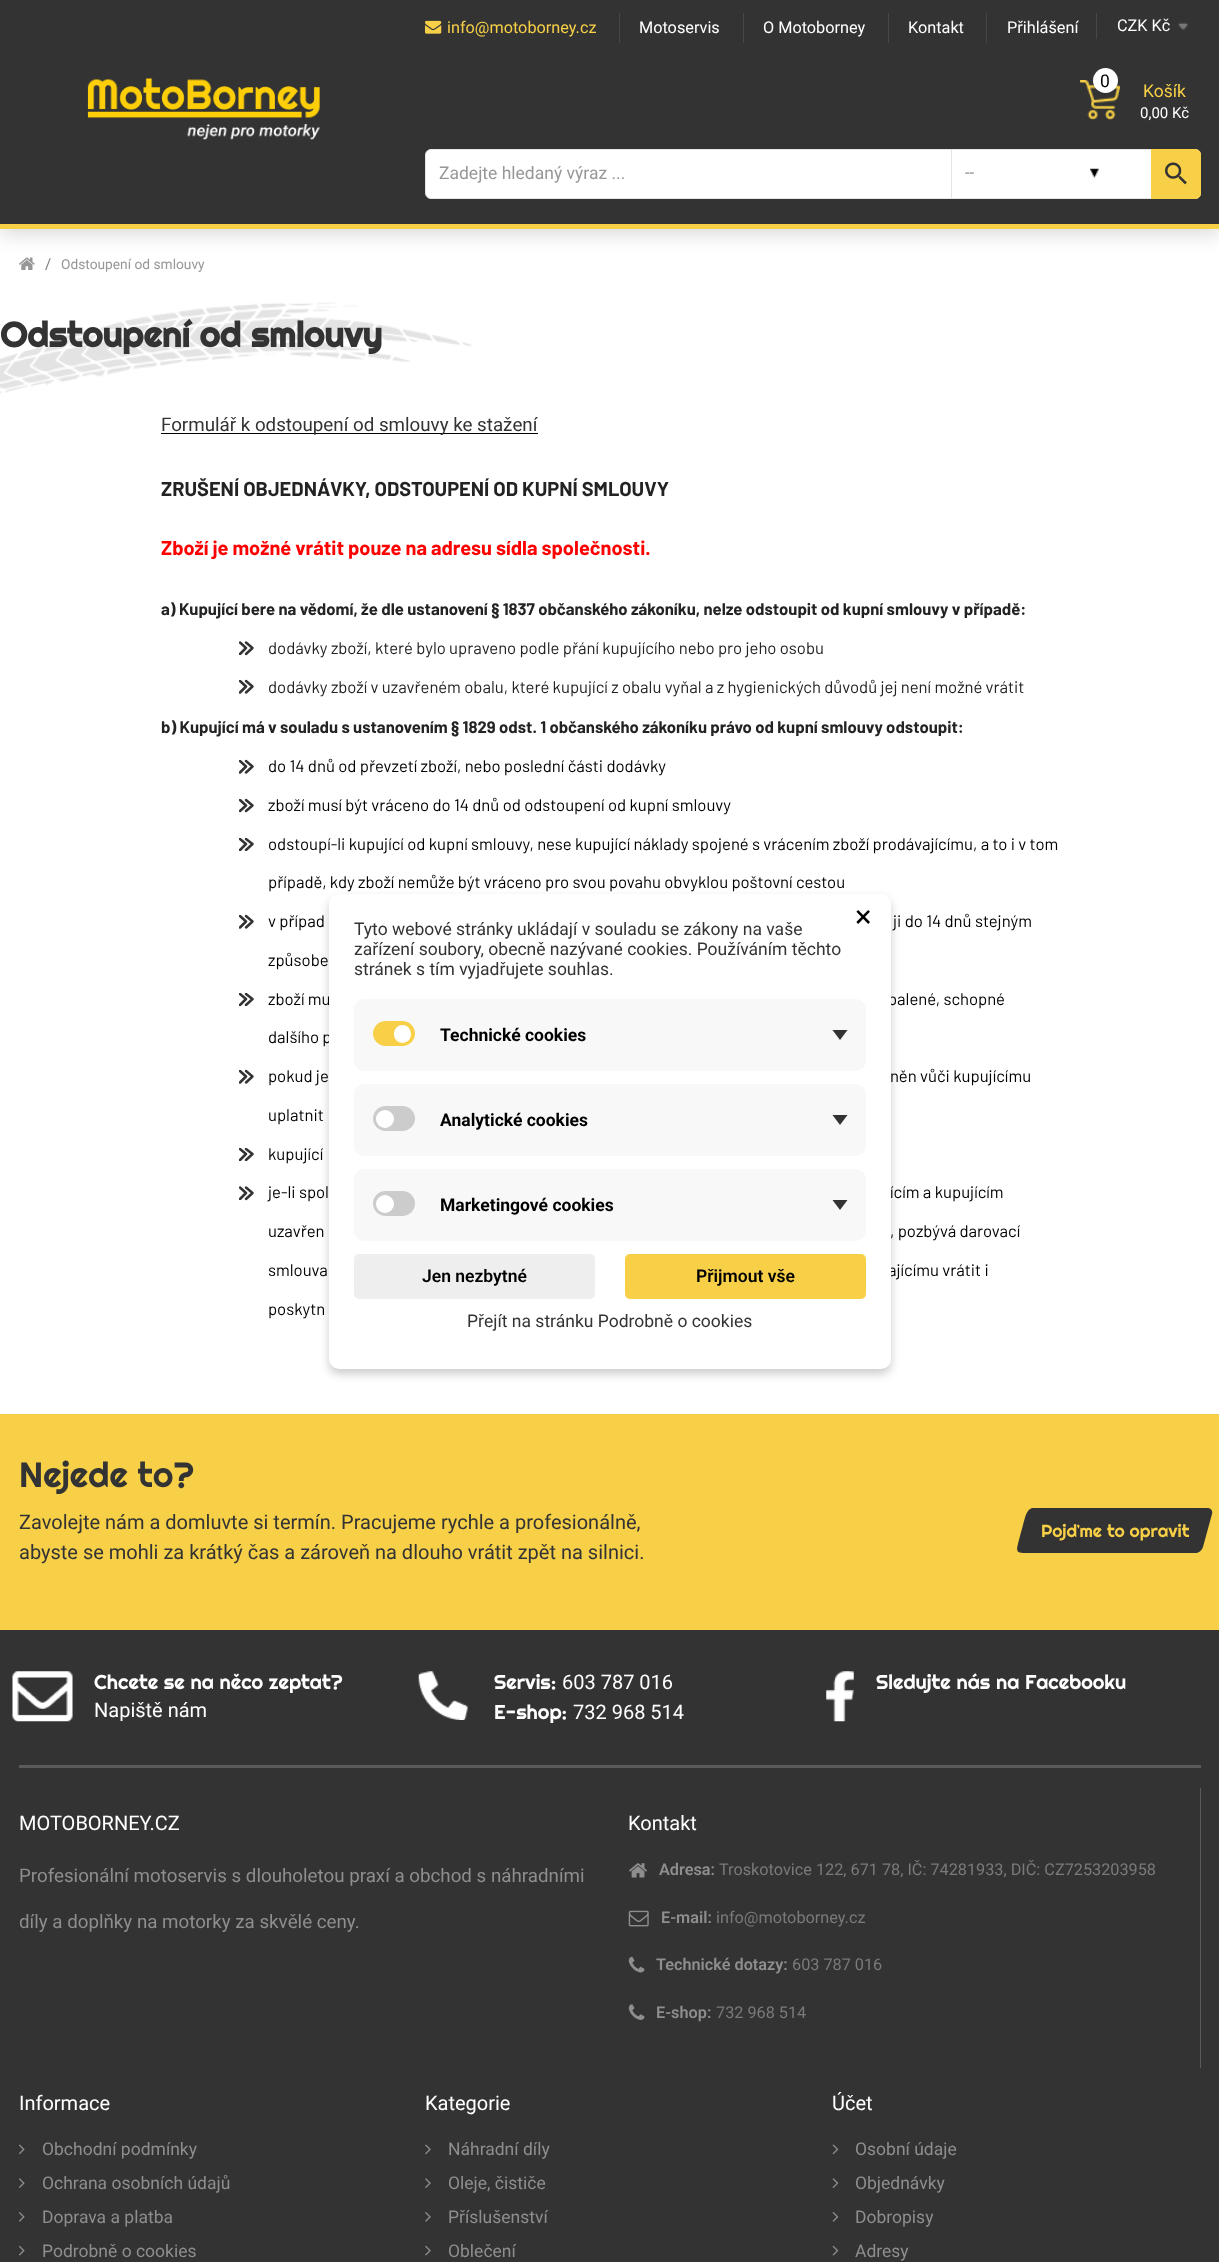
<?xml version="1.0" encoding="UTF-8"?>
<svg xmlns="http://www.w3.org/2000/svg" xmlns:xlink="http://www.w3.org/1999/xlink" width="1219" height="2262">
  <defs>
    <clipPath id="clip1"><rect x="239" y="641" width="15" height="14" /></clipPath>
    <clipPath id="clip2"><rect x="239" y="680" width="15" height="14" /></clipPath>
    <clipPath id="clip3"><rect x="239" y="760" width="15" height="14" /></clipPath>
    <clipPath id="clip4"><rect x="239" y="799" width="15" height="14" /></clipPath>
    <clipPath id="clip5"><rect x="239" y="838" width="15" height="13" /></clipPath>
    <clipPath id="clip6"><rect x="239" y="915" width="15" height="14" /></clipPath>
    <clipPath id="clip7"><rect x="239" y="993" width="15" height="13" /></clipPath>
    <clipPath id="clip8"><rect x="239" y="1070" width="15" height="14" /></clipPath>
    <clipPath id="clip9"><rect x="239" y="1148" width="15" height="13" /></clipPath>
    <clipPath id="clip10"><rect x="239" y="1186" width="15" height="14" /></clipPath>
  </defs>
  <rect width="100%" height="100%" fill="#ffffff" />
  <image x="19" y="257" width="16" height="13" xlink:href="image7.png" />
  <rect y="60" width="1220" height="174" fill="#000000" fill-opacity="0.15" filter="blur(9.5px)" />
  <rect width="1219" height="224" fill="#333333" />
  <image x="425" y="20" width="17" height="14" xlink:href="image1.png" />
  <rect x="619" y="13" width="1" height="30" fill="#474747" />
  <rect x="743" y="13" width="1" height="30" fill="#474747" />
  <rect x="888" y="13" width="1" height="30" fill="#474747" />
  <rect x="986" y="13" width="1" height="30" fill="#474747" />
  <rect x="1096" y="13" width="1" height="26" fill="#474747" />
  <image x="1178" y="22" width="10" height="8" xlink:href="image2.png" />
  <rect y="224" width="1219" height="5" fill="#f7d048" />
  <image x="87" y="78" width="233" height="62" xlink:href="image3.png" />
  <image x="1080" y="80" width="40" height="40" xlink:href="image4.png" />
  <circle cx="1105.5" cy="80.5" r="12.5" fill="#ffffff" />
  <rect x="425.5" y="149.5" width="775" height="49" rx="5.5" fill="#ffffff" stroke="#e5e5e5" />
  <image x="1090" y="168" width="9" height="10" xlink:href="image5.png" />
  <rect x="951" y="149" width="1" height="50" fill="#e5e5e5" />
  <path d="M 1151 149 h 44 c 3.5 0 6 2.5 6 6 v 38 c 0 3.5 -2.5 6 -6 6 h -44 z" fill="#f7d048" />
  <image x="1165" y="162" width="22" height="23" xlink:href="image6.png" />
  <image x="0" y="302" width="472" height="92" xlink:href="image8.png" />
  <rect x="161" y="433" width="377" height="1" fill="#000000" />
  <g clip-path="url(#clip1)">
    <path d="M 240 642.5 l 6 5.5 l -6 6" fill="none" stroke="#333333" stroke-width="2.5" stroke-linecap="round" stroke-linejoin="round" />
  </g>
  <path d="M 246 642.5 l 6.5 5.5 l -6.5 6" fill="none" stroke="#333333" stroke-width="2.5" stroke-linecap="round" stroke-linejoin="round" />
  <g clip-path="url(#clip2)">
    <path d="M 240 681 l 6 5.5 l -6 6" fill="none" stroke="#333333" stroke-width="2.5" stroke-linecap="round" stroke-linejoin="round" />
  </g>
  <path d="M 246 681 l 6.5 5.5 l -6.5 6" fill="none" stroke="#333333" stroke-width="2.5" stroke-linecap="round" stroke-linejoin="round" />
  <g clip-path="url(#clip3)">
    <path d="M 240 761 l 6 5.5 l -6 6" fill="none" stroke="#333333" stroke-width="2.5" stroke-linecap="round" stroke-linejoin="round" />
  </g>
  <path d="M 246 761 l 6.5 5.5 l -6.5 6" fill="none" stroke="#333333" stroke-width="2.5" stroke-linecap="round" stroke-linejoin="round" />
  <g clip-path="url(#clip4)">
    <path d="M 240 800 l 6 5.5 l -6 5.5" fill="none" stroke="#333333" stroke-width="2.5" stroke-linecap="round" stroke-linejoin="round" />
  </g>
  <path d="M 246 800 l 6.5 5.5 l -6.5 5.5" fill="none" stroke="#333333" stroke-width="2.5" stroke-linecap="round" stroke-linejoin="round" />
  <g clip-path="url(#clip5)">
    <path d="M 240 839 l 6 5 l -6 6 m 6 -11 l 6.5 5 l -6.5 6" fill="none" stroke="#333333" stroke-width="2.5" stroke-linecap="round" stroke-linejoin="round" />
  </g>
  <g clip-path="url(#clip6)">
    <path d="M 240 916 l 6 5.5 l -6 6" fill="none" stroke="#333333" stroke-width="2.5" stroke-linecap="round" stroke-linejoin="round" />
  </g>
  <path d="M 246 916 l 6.5 5.5 l -6.5 6" fill="none" stroke="#333333" stroke-width="2.5" stroke-linecap="round" stroke-linejoin="round" />
  <g clip-path="url(#clip7)">
    <path d="M 240 994 l 6 5 l -6 6 m 6 -11 l 6.5 5 l -6.5 6" fill="none" stroke="#333333" stroke-width="2.5" stroke-linecap="round" stroke-linejoin="round" />
  </g>
  <g clip-path="url(#clip8)">
    <path d="M 240 1071 l 6 5.5 l -6 6" fill="none" stroke="#333333" stroke-width="2.5" stroke-linecap="round" stroke-linejoin="round" />
  </g>
  <path d="M 246 1071 l 6.5 5.5 l -6.5 6" fill="none" stroke="#333333" stroke-width="2.5" stroke-linecap="round" stroke-linejoin="round" />
  <g clip-path="url(#clip9)">
    <path d="M 240 1149 l 6 5 l -6 6 m 6 -11 l 6.5 5 l -6.5 6" fill="none" stroke="#333333" stroke-width="2.5" stroke-linecap="round" stroke-linejoin="round" />
  </g>
  <g clip-path="url(#clip10)">
    <path d="M 240 1187.5 l 6 5.5 l -6 6" fill="none" stroke="#333333" stroke-width="2.5" stroke-linecap="round" stroke-linejoin="round" />
  </g>
  <path d="M 246 1187.5 l 6.5 5.5 l -6.5 6" fill="none" stroke="#333333" stroke-width="2.5" stroke-linecap="round" stroke-linejoin="round" />
  <rect y="1630" width="1219" height="632" fill="#333333" />
  <rect y="1414" width="1219" height="216" fill="#f7d048" />
  <path d="M 1034 1508 h 167 v 39 c 0 3.5 -2.5 6 -6 6 h -167 v -39 c 0 -3.5 2.5 -6 6 -6 z" fill="#333333" />
  <image x="12" y="1671" width="61" height="51" xlink:href="image9.png" />
  <image x="418" y="1671" width="50" height="49" xlink:href="image10.png" />
  <image x="826" y="1671" width="28" height="51" xlink:href="image11.png" />
  <rect x="19" y="1765" width="1182" height="3" fill="#5b5b5b" />
  <rect x="1200" y="1788" width="1" height="280" fill="#5b5b5b" />
  <image x="629" y="1863" width="18" height="15" xlink:href="image12.png" />
  <image x="628" y="1910" width="21" height="17" xlink:href="image13.png" />
  <image x="628" y="1956" width="17" height="17" xlink:href="image14.png" />
  <image x="628" y="2004" width="17" height="16" xlink:href="image15.png" />
  <image x="19" y="2144" width="6" height="11" xlink:href="image16.png" />
  <image x="19" y="2178" width="6" height="10" xlink:href="image17.png" />
  <image x="19" y="2212" width="6" height="10" xlink:href="image18.png" />
  <image x="19" y="2245" width="6" height="11" xlink:href="image19.png" />
  <image x="425" y="2144" width="6" height="11" xlink:href="image20.png" />
  <image x="425" y="2178" width="6" height="10" xlink:href="image21.png" />
  <image x="425" y="2212" width="6" height="10" xlink:href="image22.png" />
  <image x="425" y="2245" width="6" height="11" xlink:href="image23.png" />
  <image x="832" y="2144" width="7" height="11" xlink:href="image24.png" />
  <image x="832" y="2178" width="7" height="10" xlink:href="image25.png" />
  <image x="832" y="2212" width="7" height="10" xlink:href="image26.png" />
  <image x="832" y="2245" width="7" height="11" xlink:href="image27.png" />
  <rect x="329" y="899" width="562" height="475" rx="10" fill="#000000" fill-opacity="0.2" filter="blur(5px)" />
  <text x="447" y="33" style="font-family: Roboto; font-size: 16.25px; fill: #f7d048">info@motoborney.cz</text>
  <text x="639" y="33" style="font-family: Roboto; font-size: 16.25px; fill: #ffffff">Motoservis</text>
  <text x="763" y="33" style="font-family: Roboto; font-size: 16.25px; fill: #ffffff">O Motoborney</text>
  <text x="908" y="33" style="font-family: Roboto; font-size: 16.25px; fill: #ffffff">Kontakt</text>
  <text x="1007" y="33" style="font-family: Roboto; font-size: 16.25px; fill: #ffffff">Přihlášení</text>
  <text x="1117" y="31" style="font-family: Roboto; font-size: 16.25px; fill: #ffffff">CZK Kč</text>
  <text x="1100" y="87" style="font-family: Roboto; font-size: 17.5px; fill: #000000">0</text>
  <text x="1143" y="97" style="font-family: Roboto; font-size: 17.5px; fill: #f7d048">Košík</text>
  <text x="1140" y="118" style="font-family: Roboto; font-size: 15px; fill: #ffffff">0,00 Kč</text>
  <text x="439" y="179" style="font-family: Roboto; font-size: 17.5px; fill: #979797">Zadejte hledaný výraz ...</text>
  <text x="965" y="178" style="font-family: Roboto; font-size: 16.25px; fill: #888888">--</text>
  <text x="45" y="269" style="font-family: Roboto; font-size: 15px; fill: #7a7a7a">/</text>
  <text x="61" y="269" style="font-family: Roboto; font-size: 13.75px; fill: #979797">Odstoupení od smlouvy</text>
  <text x="0" y="347" style="font-family: Righteous; font-size: 35px; font-weight: bold; fill: #333333">Odstoupení od smlouvy</text>
  <text x="161" y="431" style="font-family: Roboto; font-size: 18.75px; fill: #333333">Formulář k odstoupení od smlouvy ke stažení</text>
  <text x="161" y="496" style="font-family: Barlow; font-size: 20px; font-weight: bold; fill: #232323">ZRUŠENÍ OBJEDNÁVKY, ODSTOUPENÍ OD KUPNÍ SMLOUVY</text>
  <text x="161" y="555" style="font-family: Barlow; font-size: 20px; font-weight: bold; fill: #ff0000">Zboží je možné vrátit pouze na adresu sídla společnosti.</text>
  <text x="161" y="615" style="font-family: Barlow; font-size: 16.67px; font-weight: bold; fill: #232323">a) Kupující bere na vědomí, že dle ustanovení § 1837 občanského zákoníku, nelze odstoupit od kupní smlouvy v případě:</text>
  <text x="268" y="654" style="font-family: Barlow; font-size: 16.67px; fill: #232323">dodávky zboží, které bylo upraveno podle přání kupujícího nebo pro jeho osobu</text>
  <text x="268" y="693" style="font-family: Barlow; font-size: 16.67px; fill: #232323">dodávky zboží v uzavřeném obalu, které kupující z obalu vyňal a z hygienických důvodů jej není možné vrátit</text>
  <text x="161" y="733" style="font-family: Barlow; font-size: 16.67px; font-weight: bold; fill: #232323">b) Kupující má v souladu s ustanovením § 1829 odst. 1 občanského zákoníku právo od kupní smlouvy odstoupit:</text>
  <text x="268" y="772" style="font-family: Barlow; font-size: 16.67px; fill: #000000">do 14 dnů od převzetí zboží, nebo poslední části dodávky</text>
  <text x="268" y="811" style="font-family: Barlow; font-size: 16.67px; fill: #000000">zboží musí být vráceno do 14 dnů od odstoupení od kupní smlouvy</text>
  <text x="268" y="850" style="font-family: Barlow; font-size: 16.67px; fill: #000000">odstoupí-li kupující od kupní smlouvy, nese kupující náklady spojené s vrácením zboží prodávajícímu, a to i v tom</text>
  <text x="268" y="888" style="font-family: Barlow; font-size: 16.67px; fill: #000000">případě, kdy zboží nemůže být vráceno pro svou povahu obvyklou poštovní cestou</text>
  <text x="268" y="927" style="font-family: Barlow; font-size: 16.67px; fill: #000000">v případ</text>
  <text x="893" y="927" style="font-family: Barlow; font-size: 16.67px; fill: #000000">ji do 14 dnů stejným</text>
  <text x="268" y="966" style="font-family: Barlow; font-size: 16.67px; fill: #000000">způsobe</text>
  <text x="268" y="1005" style="font-family: Barlow; font-size: 16.67px; fill: #000000">zboží mu</text>
  <text x="888" y="1005" style="font-family: Barlow; font-size: 16.67px; fill: #000000">balené, schopné</text>
  <text x="268" y="1043" style="font-family: Barlow; font-size: 16.67px; fill: #000000">dalšího p</text>
  <text x="268" y="1082" style="font-family: Barlow; font-size: 16.67px; fill: #000000">pokud je</text>
  <text x="890" y="1082" style="font-family: Barlow; font-size: 16.67px; fill: #000000">něn vůči kupujícímu</text>
  <text x="268" y="1121" style="font-family: Barlow; font-size: 16.67px; fill: #000000">uplatnit</text>
  <text x="268" y="1160" style="font-family: Barlow; font-size: 16.67px; fill: #000000">kupující</text>
  <text x="268" y="1198" style="font-family: Barlow; font-size: 16.67px; fill: #000000">je-li spol</text>
  <text x="890" y="1198" style="font-family: Barlow; font-size: 16.67px; fill: #000000">ícím a kupujícím</text>
  <text x="268" y="1237" style="font-family: Barlow; font-size: 16.67px; fill: #000000">uzavřen</text>
  <text x="890" y="1237" style="font-family: Barlow; font-size: 16.67px; fill: #000000">, pozbývá darovací</text>
  <text x="268" y="1276" style="font-family: Barlow; font-size: 16.67px; fill: #000000">smlouva</text>
  <text x="888" y="1276" style="font-family: Barlow; font-size: 16.67px; fill: #000000">ajícímu vrátit i</text>
  <text x="268" y="1315" style="font-family: Barlow; font-size: 16.67px; fill: #000000">poskytn</text>
  <text x="19" y="1487" style="font-family: Righteous; font-size: 35px; fill: #333333">Nejede to?</text>
  <text x="19" y="1529" style="font-family: Roboto; font-size: 20px; fill: #333333">Zavolejte nám a domluvte si termín. Pracujeme rychle a profesionálně,</text>
  <text x="19" y="1559" style="font-family: Roboto; font-size: 20px; fill: #333333">abyste se mohli za krátký čas a zároveň na dlouho vrátit zpět na silnici.</text>
  <text x="1041" y="1537" style="font-family: Righteous; font-size: 17.5px; fill: #f7d048">Pojďme to opravit</text>
  <path d="M 1034 1508 h 8 l -13 45 c -15 0 -13 -1 -9 -17 l 3 -11 c 2 -6 3 -17 11 -17 z" fill="#333333" />
  <path d="M 1200 1508 h 7 c 4 0 6 3 5 6 l -9 33 c -1 3 -4 6 -8 6 h -7 z" fill="#333333" />
  <text x="94" y="1689" style="font-family: Righteous; font-size: 20px; fill: #ffffff">Chcete se na něco zeptat?</text>
  <text x="94" y="1717" style="font-family: Roboto; font-size: 20px; fill: #ffffff">Napiště nám</text>
  <text x="494" y="1689" style="font-family: Righteous; font-size: 20px; fill: #ffffff">Servis:</text>
  <text x="562" y="1689" style="font-family: Roboto; font-size: 20px; fill: #ffffff">603 787 016</text>
  <text x="494" y="1719" style="font-family: Righteous; font-size: 20px; fill: #ffffff">E-shop:</text>
  <text x="573" y="1719" style="font-family: Roboto; font-size: 20px; fill: #ffffff">732 968 514</text>
  <text x="876" y="1689" style="font-family: Righteous; font-size: 20px; fill: #ffffff">Sledujte nás na Facebooku</text>
  <text x="19" y="1830" style="font-family: Roboto; font-size: 20px; fill: #ffffff">MOTOBORNEY.CZ</text>
  <text x="19" y="1882" style="font-family: Roboto; font-size: 18.75px; fill: #8e8e8e">Profesionální motoservis s dlouholetou praxí a obchod s náhradními</text>
  <text x="19" y="1928" style="font-family: Roboto; font-size: 18.75px; fill: #8e8e8e">díly a doplňky na motorky za skvělé ceny.</text>
  <text x="628" y="1830" style="font-family: Roboto; font-size: 20px; fill: #ffffff">Kontakt</text>
  <text x="659" y="1875" style="font-family: Roboto; font-size: 16.25px; font-weight: 600; fill: #8e8e8e">Adresa:</text>
  <text x="719" y="1875" style="font-family: Roboto; font-size: 16.25px; fill: #7a7a7a">Troskotovice 122, 671 78, IČ: 74281933, DIČ: CZ7253203958</text>
  <text x="661" y="1923" style="font-family: Roboto; font-size: 16.25px; font-weight: 600; fill: #8e8e8e">E-mail:</text>
  <text x="716" y="1923" style="font-family: Roboto; font-size: 16.25px; fill: #7a7a7a">info@motoborney.cz</text>
  <text x="656" y="1970" style="font-family: Roboto; font-size: 16.25px; font-weight: 600; fill: #8e8e8e">Technické dotazy:</text>
  <text x="792" y="1970" style="font-family: Roboto; font-size: 16.25px; fill: #7a7a7a">603 787 016</text>
  <text x="656" y="2018" style="font-family: Roboto; font-size: 16.25px; font-weight: 600; fill: #8e8e8e">E-shop:</text>
  <text x="716" y="2018" style="font-family: Roboto; font-size: 16.25px; fill: #7a7a7a">732 968 514</text>
  <text x="19" y="2110" style="font-family: Roboto; font-size: 20px; fill: #ffffff">Informace</text>
  <text x="42" y="2155" style="font-family: Roboto; font-size: 17.5px; fill: #8e8e8e">Obchodní podmínky</text>
  <text x="42" y="2189" style="font-family: Roboto; font-size: 17.5px; fill: #8e8e8e">Ochrana osobních údajů</text>
  <text x="42" y="2223" style="font-family: Roboto; font-size: 17.5px; fill: #8e8e8e">Doprava a platba</text>
  <text x="42" y="2257" style="font-family: Roboto; font-size: 17.5px; fill: #8e8e8e">Podrobně o cookies</text>
  <text x="425" y="2110" style="font-family: Roboto; font-size: 20px; fill: #ffffff">Kategorie</text>
  <text x="448" y="2155" style="font-family: Roboto; font-size: 17.5px; fill: #8e8e8e">Náhradní díly</text>
  <text x="448" y="2189" style="font-family: Roboto; font-size: 17.5px; fill: #8e8e8e">Oleje, čističe</text>
  <text x="448" y="2223" style="font-family: Roboto; font-size: 17.5px; fill: #8e8e8e">Příslušenství</text>
  <text x="448" y="2257" style="font-family: Roboto; font-size: 17.5px; fill: #8e8e8e">Oblečení</text>
  <text x="832" y="2110" style="font-family: Roboto; font-size: 20px; fill: #ffffff">Účet</text>
  <text x="855" y="2155" style="font-family: Roboto; font-size: 17.5px; fill: #8e8e8e">Osobní údaje</text>
  <text x="855" y="2189" style="font-family: Roboto; font-size: 17.5px; fill: #8e8e8e">Objednávky</text>
  <text x="855" y="2223" style="font-family: Roboto; font-size: 17.5px; fill: #8e8e8e">Dobropisy</text>
  <text x="855" y="2257" style="font-family: Roboto; font-size: 17.5px; fill: #8e8e8e">Adresy</text>
  <rect x="329" y="894" width="562" height="475" rx="10" fill="#ffffff" />
  <text x="855" y="927" style="font-family: Roboto; font-size: 31px; fill: #000000">×</text>
  <text x="354" y="935" style="font-family: Roboto; font-size: 17.5px; fill: #333333">Tyto webové stránky ukládají v souladu se zákony na vaše</text>
  <text x="354" y="955" style="font-family: Roboto; font-size: 17.5px; fill: #333333">zařízení soubory, obecně nazývané cookies. Používáním těchto</text>
  <text x="354" y="975" style="font-family: Roboto; font-size: 17.5px; fill: #333333">stránek s tím vyjadřujete souhlas.</text>
  <rect x="354" y="999" width="512" height="72" rx="10" fill="#f8f8f8" />
  <rect x="373" y="1021" width="42" height="25" rx="12.5" fill="#f7d048" />
  <rect x="394" y="1025" width="17" height="18" rx="8.5" fill="#ffffff" />
  <text x="440" y="1041" style="font-family: Roboto; font-size: 17.5px; font-weight: bold; fill: #000000">Technické cookies</text>
  <path d="M 832.5 1030 h 15 l -7.5 10 z" fill="#333333" />
  <rect x="354" y="1084" width="512" height="72" rx="10" fill="#f8f8f8" />
  <rect x="373" y="1106" width="42" height="25" rx="12.5" fill="#cccccc" />
  <circle cx="385" cy="1119" r="9" fill="#ffffff" />
  <text x="440" y="1126" style="font-family: Roboto; font-size: 17.5px; font-weight: bold; fill: #000000">Analytické cookies</text>
  <path d="M 832.5 1115 h 15 l -7.5 10 z" fill="#333333" />
  <rect x="354" y="1169" width="512" height="72" rx="10" fill="#f8f8f8" />
  <rect x="373" y="1191" width="42" height="25" rx="12.5" fill="#cccccc" />
  <circle cx="385" cy="1204" r="9" fill="#ffffff" />
  <text x="440" y="1211" style="font-family: Roboto; font-size: 17.5px; font-weight: bold; fill: #000000">Marketingové cookies</text>
  <path d="M 832.5 1200 h 15 l -7.5 10 z" fill="#333333" />
  <rect x="354" y="1254" width="241" height="45" rx="5" fill="#eeeeee" />
  <text x="422" y="1282" style="font-family: Roboto; font-size: 17.5px; font-weight: 600; fill: #000000">Jen nezbytné</text>
  <rect x="625" y="1254" width="241" height="45" rx="5" fill="#f7d048" />
  <text x="696" y="1282" style="font-family: Roboto; font-size: 17.5px; font-weight: 600; fill: #000000">Přijmout vše</text>
  <text x="467" y="1327" style="font-family: Roboto; font-size: 17.5px; fill: #333333">Přejít na stránku Podrobně o cookies</text>
</svg>
